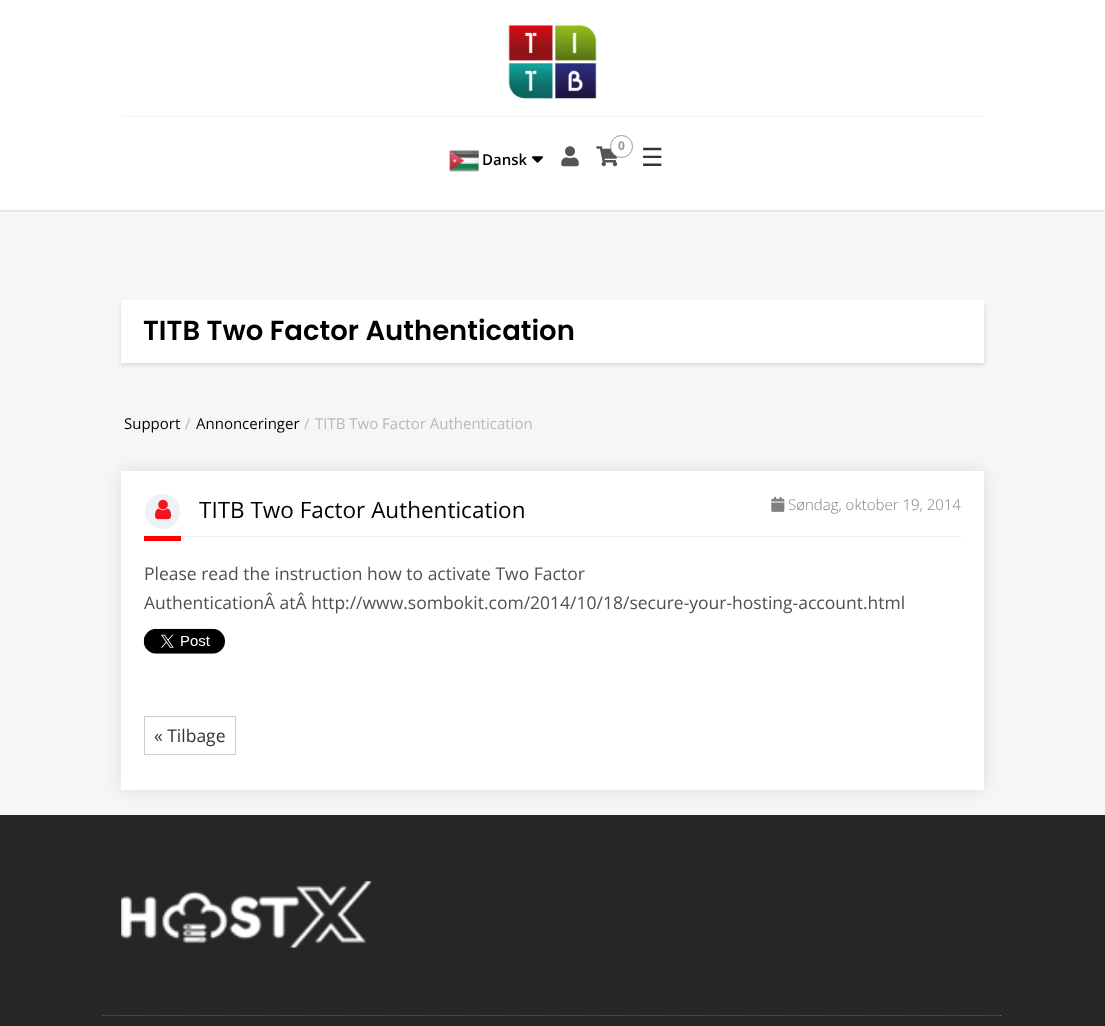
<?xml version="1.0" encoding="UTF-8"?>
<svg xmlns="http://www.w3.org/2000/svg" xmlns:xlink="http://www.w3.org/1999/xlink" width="1105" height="1026">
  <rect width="100%" height="100%" fill="#ffffff" />
  <image x="508" y="25" width="89" height="74" xlink:href="image1.png" />
  <rect x="121" y="116" width="863" height="1" fill="#f5f3f3" />
  <image x="449" y="150" width="30" height="22" xlink:href="image2.png" />
  <image x="531" y="156" width="13" height="7" xlink:href="image3.png" />
  <image x="561" y="146" width="18" height="21" xlink:href="image4.png" />
  <image x="596" y="146" width="22" height="21" xlink:href="image5.png" />
  <circle cx="621.5" cy="146.5" r="11" fill="#ffffff" stroke="#999999" />
  <rect y="210" width="1105" height="1" fill="#e7e7e7" />
  <rect y="211" width="1105" height="1" fill="#dfe4f2" />
  <rect y="213" width="1105" height="602" fill="#f7f5f6" />
  <rect x="121" y="303" width="863" height="62" fill="#000000" fill-opacity="0.13" filter="blur(2px)" />
  <rect x="121" y="300" width="863" height="63" fill="#ffffff" />
  <rect x="121" y="471" width="863" height="319" fill="#000000" fill-opacity="0.1" filter="blur(8px)" />
  <rect x="121" y="471" width="863" height="319" fill="#ffffff" />
  <rect x="181" y="536" width="780" height="1" fill="#edeff1" />
  <circle cx="162.5" cy="511.5" r="17.5" fill="#eef2f4" />
  <image x="155" y="499" width="17" height="21" xlink:href="image6.png" />
  <image x="771" y="496" width="14" height="16" xlink:href="image7.png" />
  <rect x="144" y="536" width="37" height="5" fill="#ff0000" />
  <image x="143" y="628" width="82" height="26" xlink:href="image8.png" />
  <rect x="144.5" y="716.5" width="91" height="38" fill="none" stroke="#cccccc" />
  <rect y="815" width="1105" height="211" fill="#262626" />
  <path d="M 102.5 1015.5 h 900" fill="none" stroke="#666666" stroke-width="1.2" stroke-dasharray="1.25 1.25" />
  <image x="121" y="881" width="251" height="67" xlink:href="image9.png" />
  <text x="482" y="165" style="font-family: Open Sans; font-size: 15px; font-weight: 600; fill: #000000">Dansk</text>
  <text x="618" y="150" style="font-family: Open Sans; font-size: 12px; font-weight: bold; fill: #999999">0</text>
  <text x="641" y="166" style="font-family: DejaVu Sans; font-size: 25px; fill: #333333">☰</text>
  <text x="143" y="340" style="font-family: Poppins; font-size: 27.5px; font-weight: 600; fill: #000000">TITB Two Factor Authentication</text>
  <text x="124" y="429" style="font-family: Open Sans; font-size: 15px; fill: #000000">Support</text>
  <text x="185" y="429" style="font-family: Open Sans; font-size: 15px; fill: #b9b9b9">/</text>
  <text x="196" y="429" style="font-family: Open Sans; font-size: 15px; fill: #000000">Annonceringer</text>
  <text x="304" y="429" style="font-family: Open Sans; font-size: 15px; fill: #b9b9b9">/</text>
  <text x="315" y="429" style="font-family: Open Sans; font-size: 15px; fill: #b9b9b9">TITB Two Factor Authentication</text>
  <text x="199" y="518" style="font-family: Open Sans; font-size: 22.5px; fill: #000000">TITB Two Factor Authentication</text>
  <text x="788" y="510" style="font-family: Open Sans; font-size: 15px; font-weight: 300; fill: #808080">Søndag, oktober 19, 2014</text>
  <text x="144" y="580" style="font-family: Open Sans; font-size: 17.5px; fill: #505050">Please read the instruction how to activate Two Factor</text>
  <text x="144" y="609" style="font-family: Open Sans; font-size: 17.5px; fill: #505050">AuthenticationÂ atÂ http://www.sombokit.com/2014/10/18/secure-your-hosting-account.html</text>
  <text x="154" y="742" style="font-family: Open Sans; font-size: 17.5px; fill: #333333">« Tilbage</text>
</svg>
